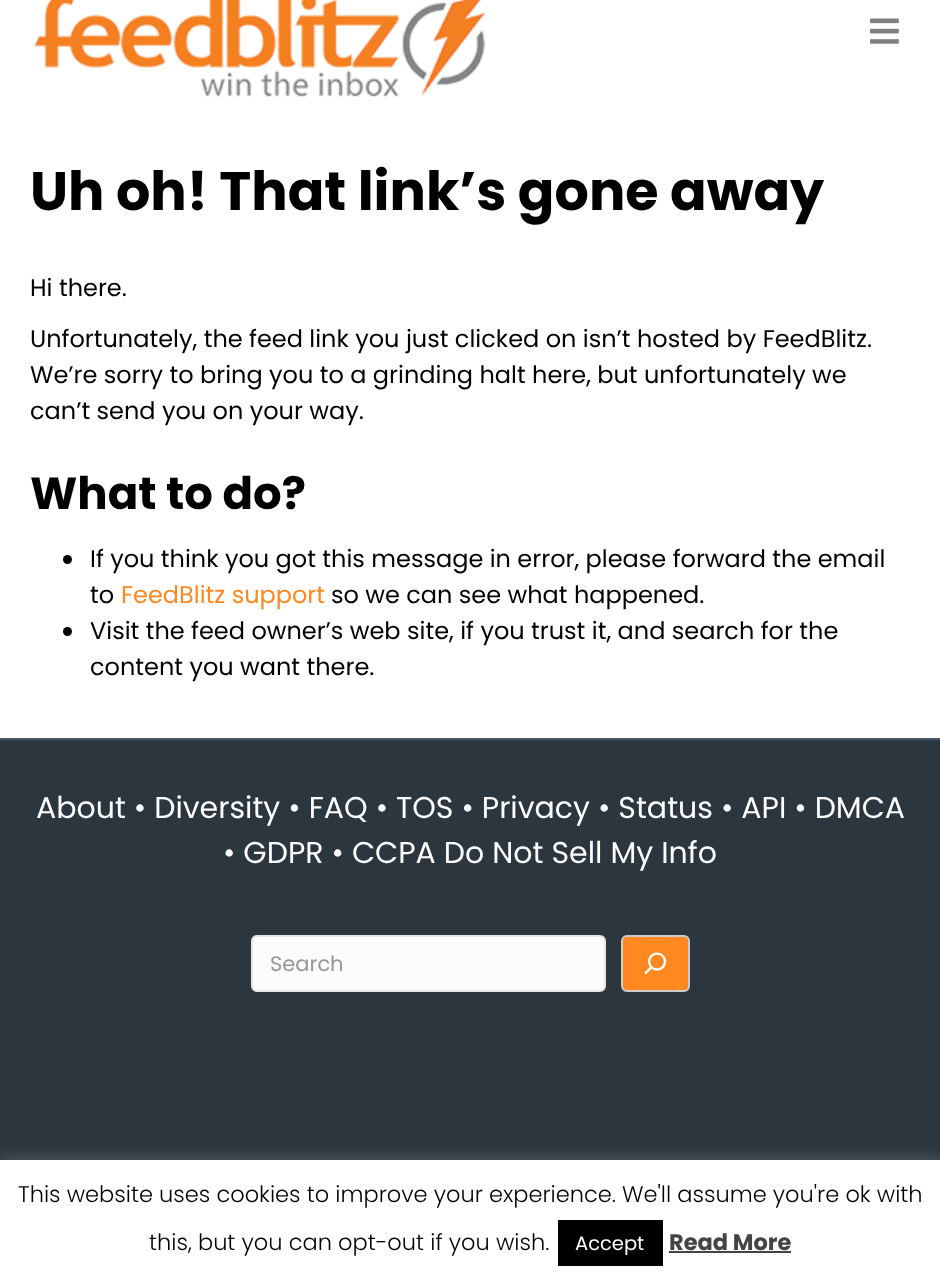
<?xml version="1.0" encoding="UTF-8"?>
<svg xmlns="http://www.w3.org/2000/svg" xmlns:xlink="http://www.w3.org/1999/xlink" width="940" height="1283">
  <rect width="100%" height="100%" fill="#ffffff" />
  <image x="34" y="0" width="452" height="97" xlink:href="image1.png" />
  <image x="870" y="18" width="29" height="26" xlink:href="image2.png" />
  <circle cx="67.5" cy="559.5" r="4.5" fill="#000000" />
  <circle cx="67.5" cy="631.5" r="4.5" fill="#000000" />
  <rect y="740" width="940" height="420" fill="#2c363e" />
  <rect y="738" width="940" height="2" fill="#485865" />
  <rect x="252" y="936" width="353" height="55" rx="5" fill="#fcfcfc" stroke="#e6e6e6" stroke-width="2" />
  <rect x="622" y="936" width="67" height="55" rx="5" fill="#ff8820" stroke="#cccccc" stroke-width="2" />
  <image x="644" y="952" width="23" height="23" xlink:href="image3.png" />
  <rect y="1158" width="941" height="125" fill="#acabab" fill-opacity="0.3" filter="blur(7.5px)" />
  <rect y="1160" width="940" height="123" fill="#ffffff" />
  <rect x="558" y="1220" width="105" height="46" fill="#000000" />
  <rect x="669" y="1251" width="122" height="2" fill="#444444" />
  <text x="30" y="210" style="font-family: Poppins; font-size: 54px; font-weight: bold; fill: #000000">Uh oh! That link’s gone away</text>
  <text x="30" y="296" style="font-family: Poppins; font-size: 24px; fill: #000000">Hi there.</text>
  <text x="30" y="347" style="font-family: Poppins; font-size: 24px; fill: #000000">Unfortunately, the feed link you just clicked on isn’t hosted by FeedBlitz.</text>
  <text x="30" y="383" style="font-family: Poppins; font-size: 24px; fill: #000000">We’re sorry to bring you to a grinding halt here, but unfortunately we</text>
  <text x="30" y="419" style="font-family: Poppins; font-size: 24px; fill: #000000">can’t send you on your way.</text>
  <text x="30" y="509" style="font-family: Poppins; font-size: 45px; font-weight: bold; fill: #000000">What to do?</text>
  <text x="90" y="567" style="font-family: Poppins; font-size: 24px; fill: #000000">If you think you got this message in error, please forward the email</text>
  <text x="90" y="603" style="font-family: Poppins; font-size: 24px; fill: #000000">to</text>
  <text x="121" y="603" style="font-family: Poppins; font-size: 24px; fill: #ff8820">FeedBlitz support</text>
  <text x="331" y="603" style="font-family: Poppins; font-size: 24px; fill: #000000">so we can see what happened.</text>
  <text x="90" y="639" style="font-family: Poppins; font-size: 24px; fill: #000000">Visit the feed owner’s web site, if you trust it, and search for the</text>
  <text x="90" y="675" style="font-family: Poppins; font-size: 24px; fill: #000000">content you want there.</text>
  <text x="36" y="818" style="font-family: Poppins; font-size: 30px; fill: #ffffff">About • Diversity • FAQ • TOS • Privacy • Status • API • DMCA</text>
  <text x="223" y="863" style="font-family: Poppins; font-size: 30px; fill: #ffffff">• GDPR • CCPA Do Not Sell My Info</text>
  <text x="270" y="971" style="font-family: Poppins; font-size: 21px; fill: #979797">Search</text>
  <text x="18" y="1202" style="font-family: Poppins; font-size: 22.5px; font-weight: 300; fill: #000000">This website uses cookies to improve your experience. We'll assume you're ok with</text>
  <text x="149" y="1250" style="font-family: Poppins; font-size: 22.5px; font-weight: 300; fill: #000000">this, but you can opt-out if you wish.</text>
  <text x="575" y="1250" style="font-family: Poppins; font-size: 19.5px; fill: #ffffff">Accept</text>
  <text x="669" y="1250" style="font-family: Poppins; font-size: 22.5px; font-weight: bold; fill: #444444">Read More</text>
</svg>
